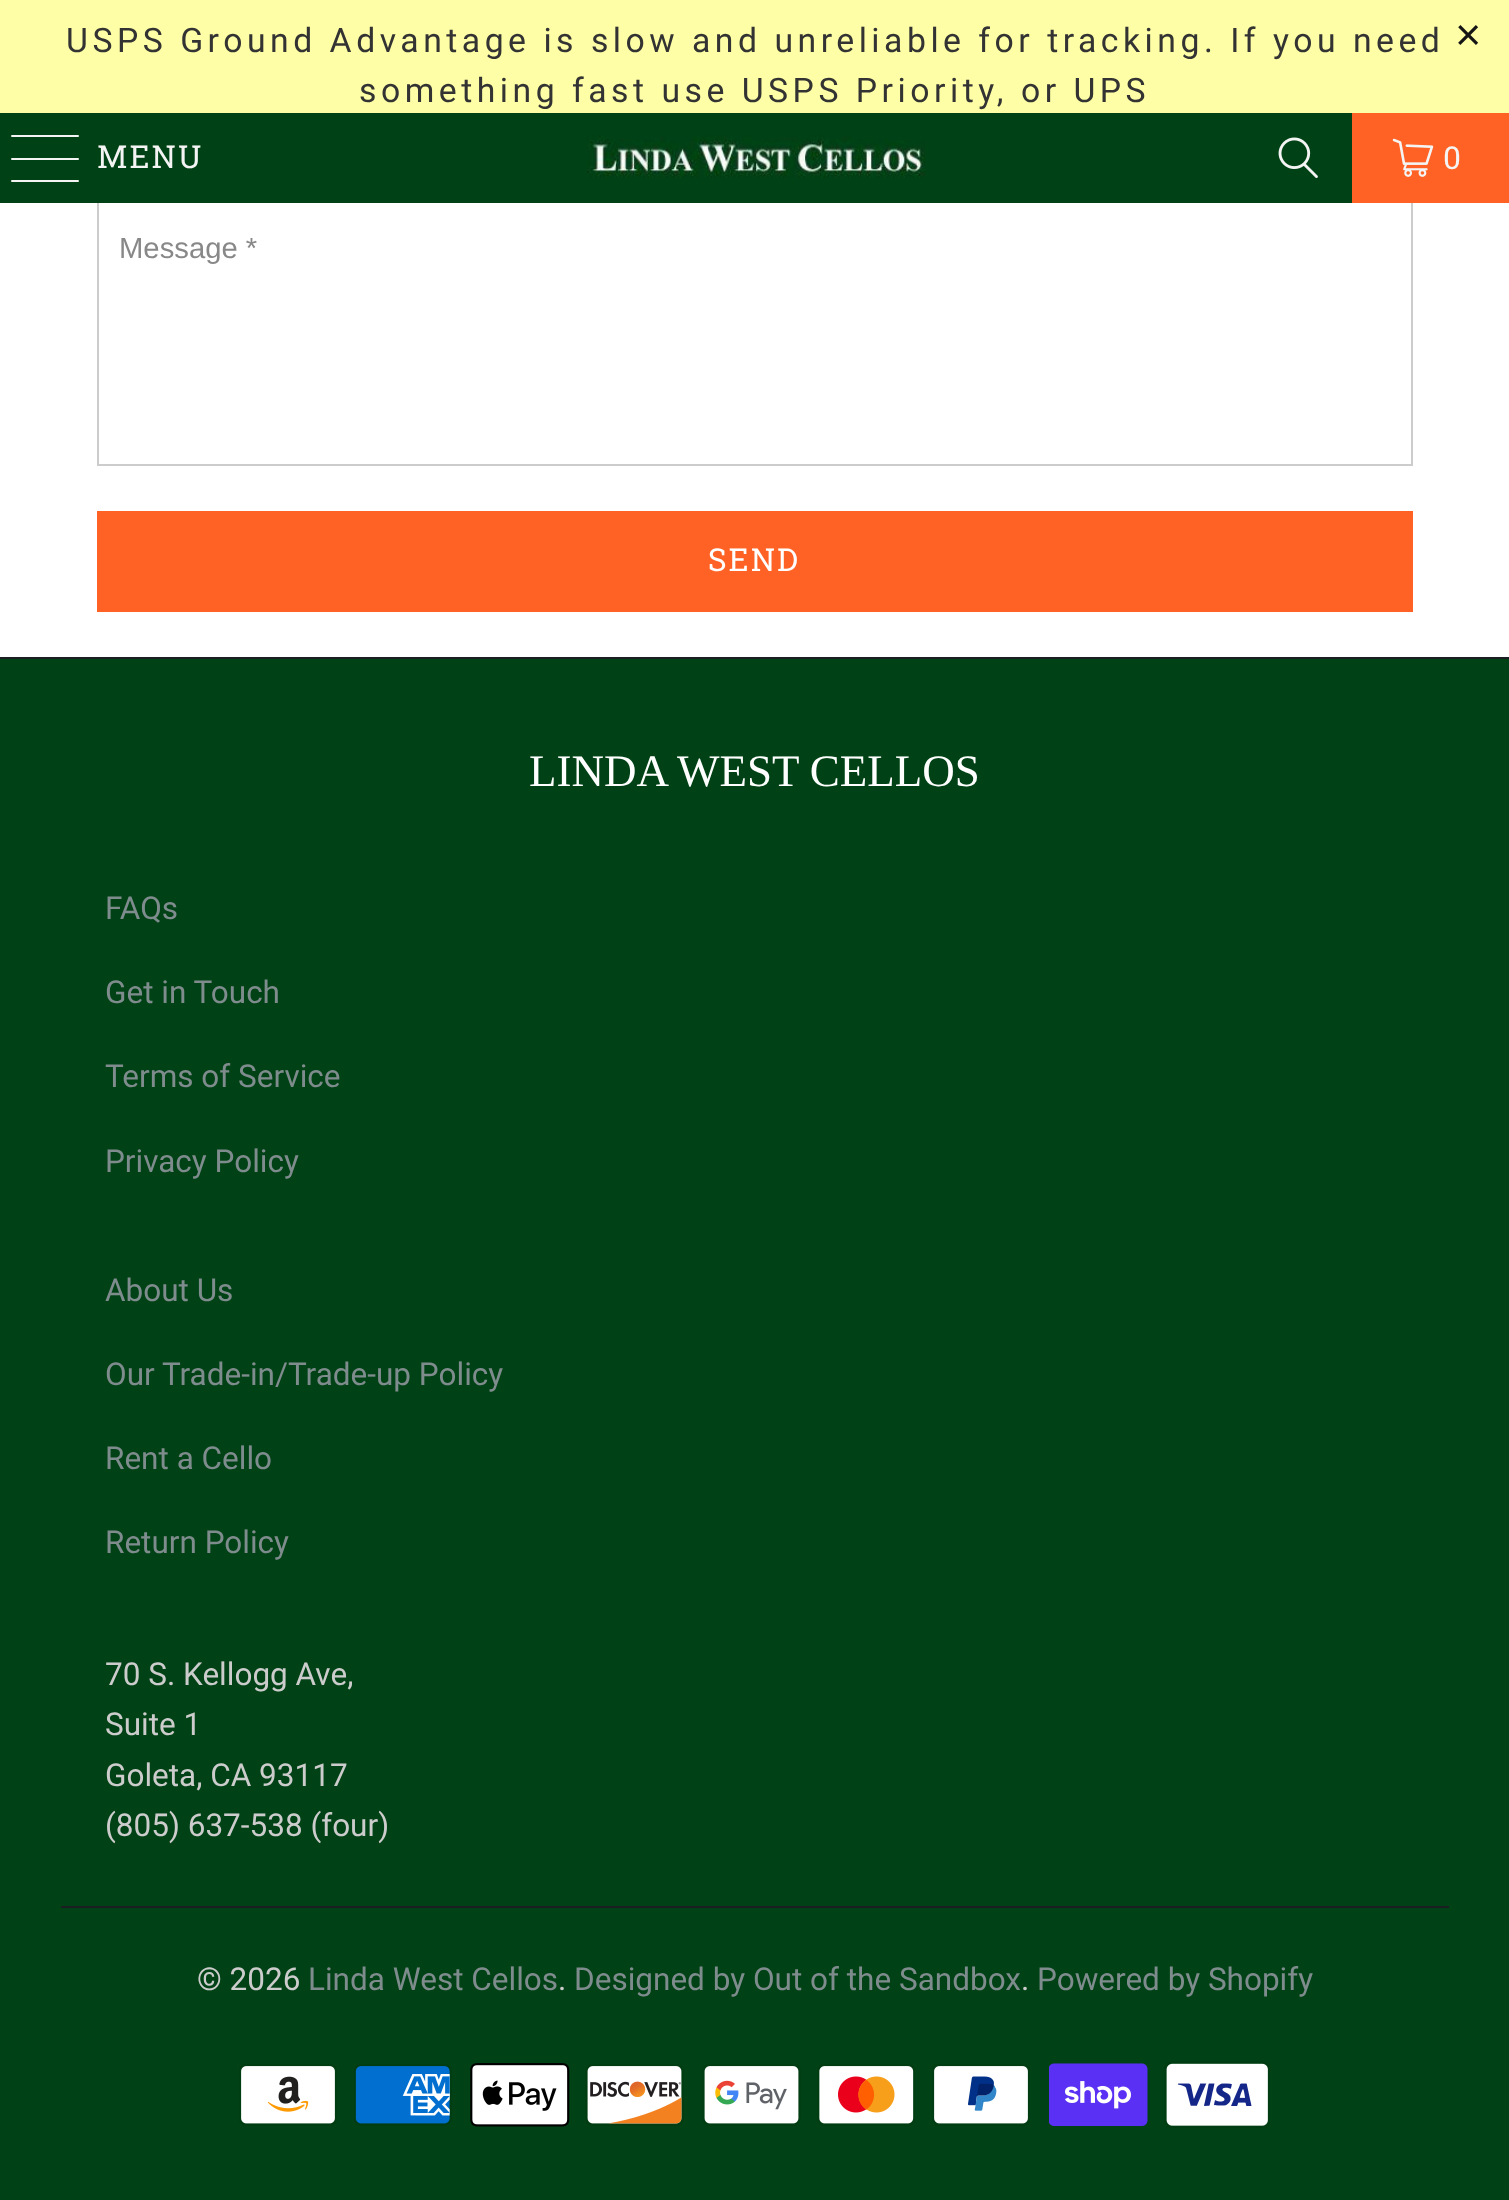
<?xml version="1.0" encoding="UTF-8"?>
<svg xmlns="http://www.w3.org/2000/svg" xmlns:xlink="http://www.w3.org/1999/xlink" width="1509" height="2200">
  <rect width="100%" height="100%" fill="#ffffff" />
  <rect width="1509" height="113" fill="#fefea6" />
  <rect x="98" y="197" width="1314" height="268" fill="none" stroke="#cccccc" stroke-width="2" />
  <rect y="113" width="1352" height="90" fill="#004215" />
  <rect x="11" y="135" width="68" height="2" rx="1" fill="#f4f4f4" />
  <rect x="11" y="158" width="68" height="2" rx="1" fill="#f4f4f4" />
  <rect x="11" y="180" width="68" height="2" rx="1" fill="#f4f4f4" />
  <image x="587" y="135" width="338" height="43" xlink:href="image1.png" />
  <image x="1278" y="137" width="40" height="41" xlink:href="image2.png" />
  <rect x="1352" y="113" width="157" height="90" fill="#ff6224" />
  <image x="1392" y="138" width="42" height="39" xlink:href="image3.png" />
  <rect x="97" y="511" width="1316" height="101" fill="#ff6224" />
  <rect y="659" width="1509" height="1541" fill="#004215" />
  <rect y="657" width="1509" height="2" fill="#1b1f23" />
  <rect x="61" y="1906" width="1388" height="2" fill="#1b1f23" />
  <image x="239" y="2064" width="98" height="62" xlink:href="image4.png" />
  <image x="354" y="2064" width="98" height="62" xlink:href="image5.png" />
  <image x="470" y="2063" width="100" height="64" xlink:href="image6.png" />
  <image x="585" y="2064" width="99" height="62" xlink:href="image7.png" />
  <image x="702" y="2064" width="99" height="62" xlink:href="image8.png" />
  <image x="817" y="2064" width="98" height="62" xlink:href="image9.png" />
  <image x="932" y="2064" width="98" height="62" xlink:href="image10.png" />
  <image x="1049" y="2063" width="99" height="63" xlink:href="image11.png" />
  <image x="1164" y="2061" width="106" height="67" xlink:href="image12.png" />
  <text x="66" y="52" style="font-family: Roboto; font-size: 33.75px; letter-spacing: 4.5px; fill: #333333">USPS Ground Advantage is slow and unreliable for tracking. If you need</text>
  <text x="359" y="102" style="font-family: Roboto; font-size: 33.75px; letter-spacing: 4.5px; fill: #333333">something fast use USPS Priority, or UPS</text>
  <text x="1455" y="50" style="font-family: Liberation Sans; font-size: 45px; letter-spacing: 4.5px; fill: #151515">×</text>
  <text x="97" y="168" style="font-family: Roboto Slab; font-size: 31.5px; letter-spacing: 2px; fill: #f4f4f4">MENU</text>
  <text x="1443" y="169" style="font-family: Roboto Slab; font-size: 31.5px; letter-spacing: 2px; fill: #f4f4f4">0</text>
  <text x="119" y="258" style="font-family: Liberation Sans; font-size: 29.25px; fill: #888888">Message *</text>
  <text x="708" y="571" style="font-family: Roboto Slab; font-size: 31.5px; letter-spacing: 2px; fill: #ffffff">SEND</text>
  <text x="529" y="786" style="font-family: Liberation Serif; font-size: 45px; fill: #ffffff">LINDA WEST CELLOS</text>
  <text x="105" y="919" style="font-family: Roboto; font-size: 31.5px; fill: #7f8c8d">FAQs</text>
  <text x="105" y="1003" style="font-family: Roboto; font-size: 31.5px; fill: #7f8c8d">Get in Touch</text>
  <text x="105" y="1087" style="font-family: Roboto; font-size: 31.5px; fill: #7f8c8d">Terms of Service</text>
  <text x="105" y="1172" style="font-family: Roboto; font-size: 31.5px; fill: #7f8c8d">Privacy Policy</text>
  <text x="105" y="1301" style="font-family: Roboto; font-size: 31.5px; fill: #7f8c8d">About Us</text>
  <text x="105" y="1385" style="font-family: Roboto; font-size: 31.5px; fill: #7f8c8d">Our Trade-in/Trade-up Policy</text>
  <text x="105" y="1469" style="font-family: Roboto; font-size: 31.5px; fill: #7f8c8d">Rent a Cello</text>
  <text x="105" y="1553" style="font-family: Roboto; font-size: 31.5px; fill: #7f8c8d">Return Policy</text>
  <text x="105" y="1685" style="font-family: Roboto; font-size: 31.5px; fill: #cccccc">70 S. Kellogg Ave,</text>
  <text x="105" y="1735" style="font-family: Roboto; font-size: 31.5px; fill: #cccccc">Suite 1</text>
  <text x="105" y="1786" style="font-family: Roboto; font-size: 31.5px; fill: #cccccc">Goleta, CA 93117</text>
  <text x="105" y="1836" style="font-family: Roboto; font-size: 31.5px; fill: #cccccc">(805) 637-538 (four)</text>
  <text x="197" y="1990" style="font-family: Roboto; font-size: 31.5px; fill: #cccccc">© 2026</text>
  <text x="308" y="1990" style="font-family: Roboto; font-size: 31.5px; fill: #7f8c8d">Linda West Cellos</text>
  <text x="558" y="1990" style="font-family: Roboto; font-size: 31.5px; fill: #cccccc">.</text>
  <text x="574" y="1990" style="font-family: Roboto; font-size: 31.5px; fill: #7f8c8d">Designed by Out of the Sandbox</text>
  <text x="1021" y="1990" style="font-family: Roboto; font-size: 31.5px; fill: #cccccc">.</text>
  <text x="1037" y="1990" style="font-family: Roboto; font-size: 31.5px; fill: #7f8c8d">Powered by Shopify</text>
</svg>
